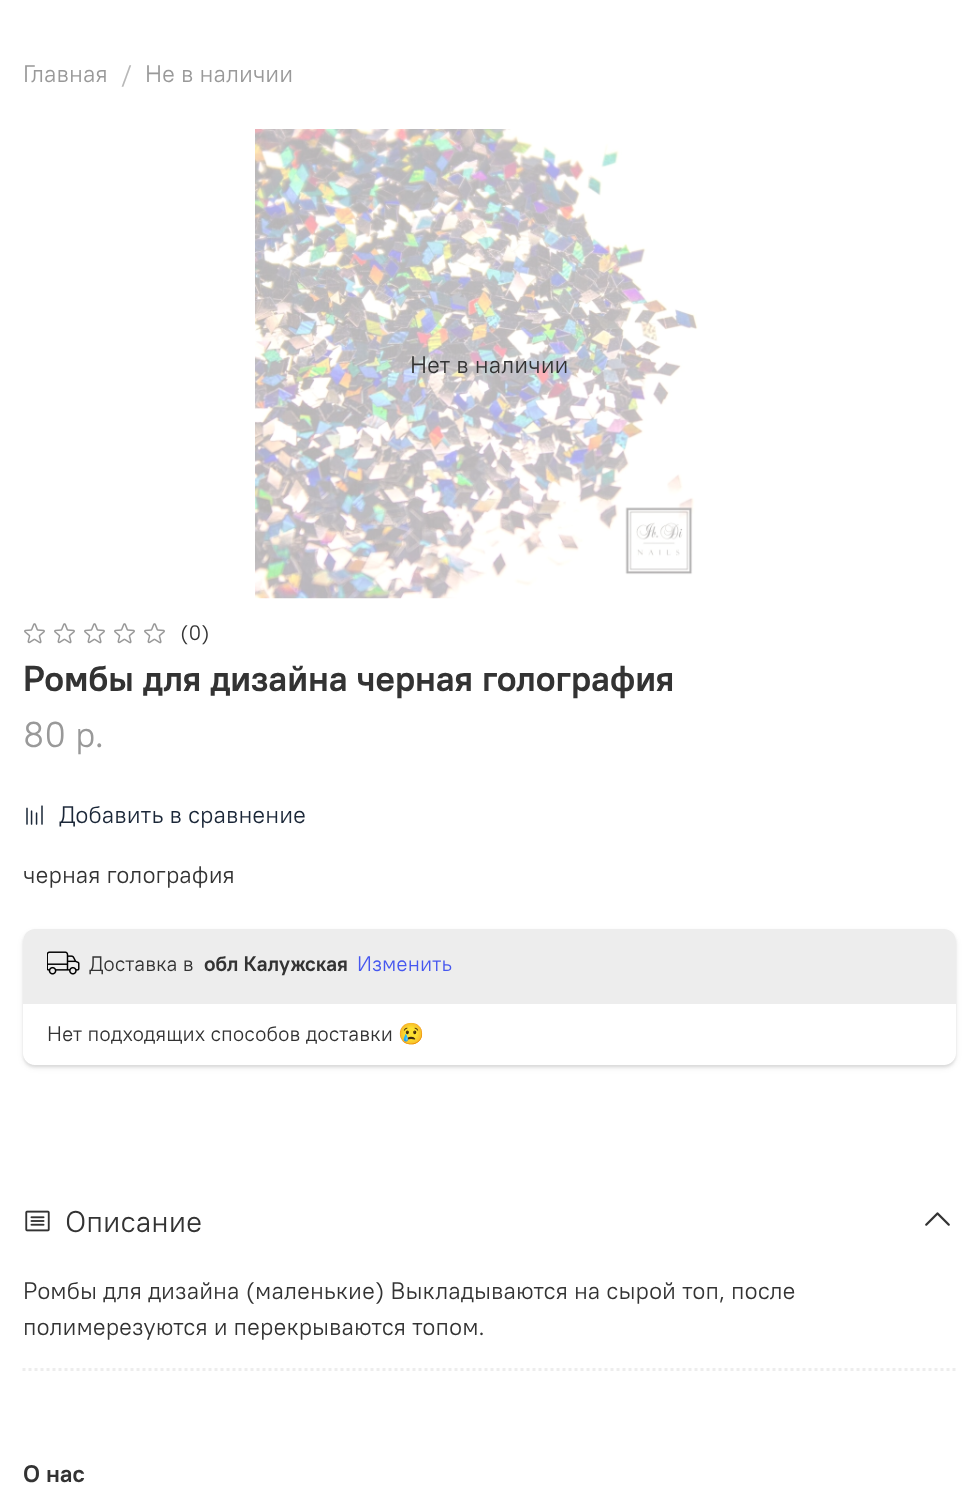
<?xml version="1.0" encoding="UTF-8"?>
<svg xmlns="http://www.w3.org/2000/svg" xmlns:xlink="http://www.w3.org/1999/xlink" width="977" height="1497">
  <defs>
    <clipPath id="clip1"><path d="M 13 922 h 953 v 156 h -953 z m 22 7 h 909 c 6.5 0 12 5.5 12 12 v 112 c 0 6.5 -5.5 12 -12 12 h -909 c -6.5 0 -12 -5.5 -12 -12 v -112 c 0 -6.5 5.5 -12 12 -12 z" clip-rule="evenodd" /></clipPath>
    <clipPath id="clip2"><path d="M 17 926 h 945 v 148 h -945 z m 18 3 h 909 c 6.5 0 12 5.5 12 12 v 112 c 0 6.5 -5.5 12 -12 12 h -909 c -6.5 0 -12 -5.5 -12 -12 v -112 c 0 -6.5 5.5 -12 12 -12 z" clip-rule="evenodd" /></clipPath>
    <clipPath id="clip3"><path d="M 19 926 h 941 v 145 h -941 z m 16 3 h 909 c 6.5 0 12 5.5 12 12 v 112 c 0 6.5 -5.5 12 -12 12 h -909 c -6.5 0 -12 -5.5 -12 -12 v -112 c 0 -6.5 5.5 -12 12 -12 z" clip-rule="evenodd" /></clipPath>
  </defs>
  <rect width="100%" height="100%" fill="#ffffff" />
  <image x="255" y="129" width="443" height="470" xlink:href="image1.png" />
  <image x="24" y="623" width="21" height="21" xlink:href="image2.png" />
  <image x="54" y="623" width="21" height="21" xlink:href="image2.png" />
  <image x="84" y="623" width="21" height="21" xlink:href="image2.png" />
  <image x="114" y="623" width="21" height="21" xlink:href="image2.png" />
  <image x="144" y="623" width="21" height="21" xlink:href="image2.png" />
  <image x="26" y="805" width="17" height="20" xlink:href="image3.png" />
  <g clip-path="url(#clip1)">
    <rect x="23" y="932" width="933" height="136" rx="12" fill="#000000" fill-opacity="0.05" filter="blur(3px)" />
  </g>
  <g clip-path="url(#clip2)">
    <rect x="23" y="932" width="933" height="136" rx="12" fill="#000000" fill-opacity="0.05" filter="blur(1.5px)" />
  </g>
  <g clip-path="url(#clip3)">
    <rect x="23" y="930" width="933" height="137" rx="12" fill="#000000" fill-opacity="0.05" filter="blur(1px)" />
  </g>
  <path d="M 35 929 h 909 c 6.5 0 12 5.5 12 12 v 63 h -933 v -63 c 0 -6.5 5.5 -12 12 -12 z" fill="#ededed" />
  <image x="47" y="951" width="33" height="24" xlink:href="image4.png" />
  <image x="25" y="1210" width="25" height="22" xlink:href="image5.png" />
  <image x="925" y="1212" width="25" height="14" xlink:href="image6.png" />
  <path d="M 22.5 1369.5 h 933" fill="none" stroke="#ededed" stroke-width="3" stroke-dasharray="3 3" />
  <text x="23" y="82" style="font-family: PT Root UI; font-size: 24px; fill: #999999">Главная</text>
  <text x="121" y="82" style="font-family: PT Root UI; font-size: 24px; fill: #b8b8b8">/</text>
  <text x="145" y="82" style="font-family: PT Root UI; font-size: 24px; fill: #999999">Не в наличии</text>
  <text x="410" y="373" style="font-family: PT Root UI; font-size: 24px; fill: #333333">Нет в наличии</text>
  <text x="180" y="640" style="font-family: PT Root UI; font-size: 21px; fill: #333333">(0)</text>
  <text x="23" y="691" style="font-family: PT Root UI; font-size: 36px; font-weight: bold; fill: #333333">Ромбы для дизайна черная голография</text>
  <text x="23" y="747" style="font-family: PT Root UI; font-size: 36px; fill: #999999">80 р.</text>
  <text x="59" y="823" style="font-family: PT Root UI; font-size: 24px; fill: #1b2738">Добавить в сравнение</text>
  <text x="23" y="883" style="font-family: PT Root UI; font-size: 24px; fill: #333333">черная голография</text>
  <text x="89" y="971" style="font-family: PT Root UI; font-size: 21px; fill: #333333">Доставка в</text>
  <text x="204" y="971" style="font-family: PT Root UI; font-size: 21px; font-weight: bold; fill: #333333">обл Калужская</text>
  <text x="357" y="971" style="font-family: PT Root UI; font-size: 21px; fill: #4657ef">Изменить</text>
  <text x="47" y="1041" style="font-family: PT Root UI; font-size: 21px; fill: #333333">Нет подходящих способов доставки</text>
  <text x="398" y="1041" style="font-family: Noto Color Emoji; font-size: 21px; fill: #333333">😢</text>
  <text x="65" y="1232" style="font-family: PT Root UI; font-size: 30px; fill: #333333">Описание</text>
  <text x="23" y="1299" style="font-family: PT Root UI; font-size: 24px; fill: #333333">Ромбы для дизайна (маленькие) Выкладываются на сырой топ, после</text>
  <text x="23" y="1335" style="font-family: PT Root UI; font-size: 24px; fill: #333333">полимерезуются и перекрываются топом.</text>
  <text x="23" y="1482" style="font-family: PT Root UI; font-size: 24px; font-weight: bold; fill: #333333">О нас</text>
</svg>
